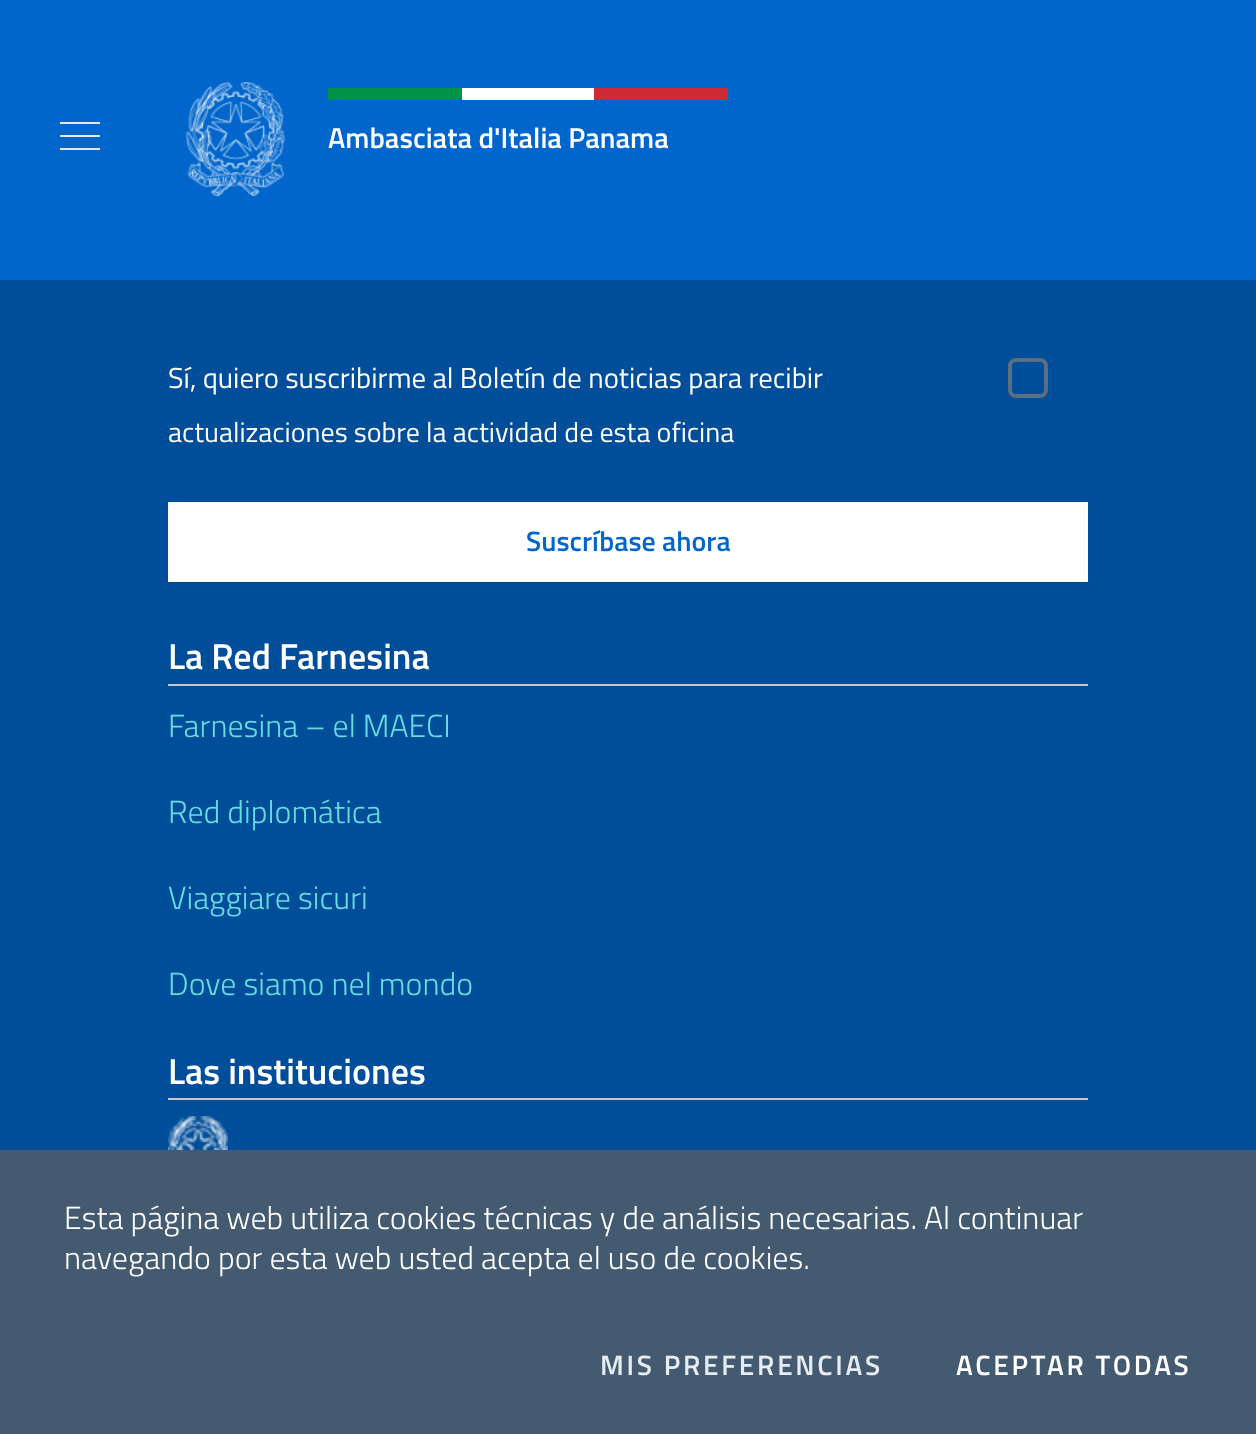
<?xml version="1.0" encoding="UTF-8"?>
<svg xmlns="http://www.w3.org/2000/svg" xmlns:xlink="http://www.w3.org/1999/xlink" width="1256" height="1434">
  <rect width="100%" height="100%" fill="#004d99" />
  <rect width="1256" height="280" fill="#0066cc" />
  <image x="60" y="122" width="40" height="28" xlink:href="image1.png" />
  <image x="186" y="82" width="99" height="115" xlink:href="image2.png" />
  <rect x="328" y="88" width="134" height="12" fill="#009246" />
  <rect x="462" y="88" width="132" height="12" fill="#ffffff" />
  <rect x="594" y="88" width="134" height="12" fill="#ce2b37" />
  <rect x="1010" y="360" width="36" height="36" rx="6" fill="none" stroke="#5b6f82" stroke-width="4" />
  <rect x="168" y="504" width="920" height="80" fill="#000000" fill-opacity="0.07" filter="blur(1px)" />
  <rect x="168" y="502" width="920" height="80" fill="#ffffff" />
  <rect x="168" y="684" width="920" height="2" fill="#c5c7c9" />
  <rect x="168" y="1098" width="920" height="2" fill="#c5c7c9" />
  <image x="168" y="1116" width="60" height="34" xlink:href="image3.png" />
  <rect y="1150" width="1256" height="284" fill="#435a70" />
  <text x="328" y="148" style="font-family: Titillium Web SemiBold; font-size: 28.8px; font-weight: 600; fill: #ffffff">Ambasciata d'Italia Panama</text>
  <text x="168" y="388" style="font-family: Titillium Web; font-size: 28.8px; fill: #ffffff">Sí, quiero suscribirme al Boletín de noticias para recibir</text>
  <text x="168" y="442" style="font-family: Titillium Web; font-size: 28px; fill: #ffffff">actualizaciones sobre la actividad de esta oficina</text>
  <text x="526" y="551" style="font-family: Titillium Web SemiBold; font-size: 28px; font-weight: 600; fill: #0066cc">Suscríbase ahora</text>
  <text x="168" y="669" style="font-family: Titillium Web SemiBold; font-size: 36px; font-weight: 600; fill: #ffffff">La Red Farnesina</text>
  <text x="168" y="737" style="font-family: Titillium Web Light; font-size: 32px; font-weight: 300; fill: #65dde0">Farnesina – el MAECI</text>
  <text x="168" y="823" style="font-family: Titillium Web Light; font-size: 32px; font-weight: 300; fill: #65dde0">Red diplomática</text>
  <text x="168" y="909" style="font-family: Titillium Web Light; font-size: 32px; font-weight: 300; fill: #65dde0">Viaggiare sicuri</text>
  <text x="168" y="995" style="font-family: Titillium Web Light; font-size: 32px; font-weight: 300; fill: #65dde0">Dove siamo nel mondo</text>
  <text x="168" y="1084" style="font-family: Titillium Web SemiBold; font-size: 36px; font-weight: 600; fill: #ffffff">Las instituciones</text>
  <text x="64" y="1229" style="font-family: Titillium Web Light; font-size: 32px; font-weight: 300; fill: #ffffff">Esta página web utiliza cookies técnicas y de análisis necesarias. Al continuar</text>
  <text x="64" y="1269" style="font-family: Titillium Web Light; font-size: 32px; font-weight: 300; fill: #ffffff">navegando por esta web usted acepta el uso de cookies.</text>
  <text x="600" y="1375" style="font-family: Titillium Web SemiBold; font-size: 28px; font-weight: 600; letter-spacing: 2.75px; fill: #e6ecf2">MIS PREFERENCIAS</text>
  <text x="956" y="1375" style="font-family: Titillium Web SemiBold; font-size: 28px; font-weight: 600; letter-spacing: 2.75px; fill: #ffffff">ACEPTAR TODAS</text>
</svg>
